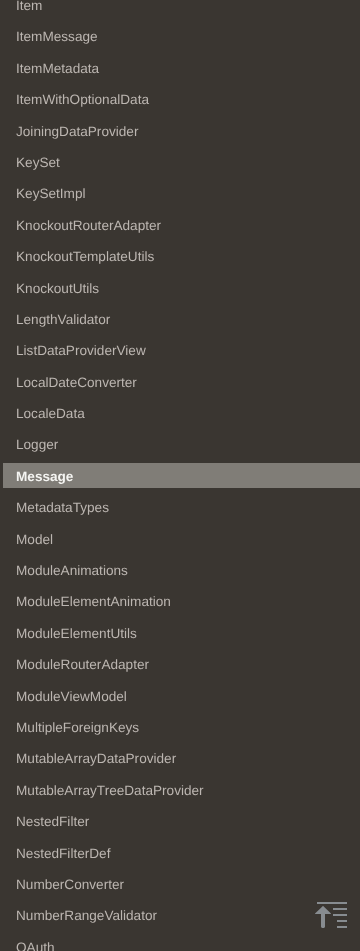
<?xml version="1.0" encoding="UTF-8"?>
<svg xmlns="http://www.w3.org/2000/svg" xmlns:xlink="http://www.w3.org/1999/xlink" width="360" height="951">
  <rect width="100%" height="100%" fill="#3a3631" />
  <rect x="3" y="463" width="357" height="25" fill="#807d77" />
  <image x="315" y="902" width="32" height="26" xlink:href="image1.png" />
  <text x="16" y="10" style="font-family: Liberation Sans; font-size: 13.6px; fill: #bcb6b1">Item</text>
  <text x="16" y="41" style="font-family: Liberation Sans; font-size: 13.6px; fill: #bcb6b1">ItemMessage</text>
  <text x="16" y="73" style="font-family: Liberation Sans; font-size: 13.6px; fill: #bcb6b1">ItemMetadata</text>
  <text x="16" y="104" style="font-family: Liberation Sans; font-size: 13.6px; fill: #bcb6b1">ItemWithOptionalData</text>
  <text x="16" y="136" style="font-family: Liberation Sans; font-size: 13.6px; fill: #bcb6b1">JoiningDataProvider</text>
  <text x="16" y="167" style="font-family: Liberation Sans; font-size: 13.6px; fill: #bcb6b1">KeySet</text>
  <text x="16" y="198" style="font-family: Liberation Sans; font-size: 13.6px; fill: #bcb6b1">KeySetImpl</text>
  <text x="16" y="230" style="font-family: Liberation Sans; font-size: 13.6px; fill: #bcb6b1">KnockoutRouterAdapter</text>
  <text x="16" y="261" style="font-family: Liberation Sans; font-size: 13.6px; fill: #bcb6b1">KnockoutTemplateUtils</text>
  <text x="16" y="293" style="font-family: Liberation Sans; font-size: 13.6px; fill: #bcb6b1">KnockoutUtils</text>
  <text x="16" y="324" style="font-family: Liberation Sans; font-size: 13.6px; fill: #bcb6b1">LengthValidator</text>
  <text x="16" y="355" style="font-family: Liberation Sans; font-size: 13.6px; fill: #bcb6b1">ListDataProviderView</text>
  <text x="16" y="387" style="font-family: Liberation Sans; font-size: 13.6px; fill: #bcb6b1">LocalDateConverter</text>
  <text x="16" y="418" style="font-family: Liberation Sans; font-size: 13.6px; fill: #bcb6b1">LocaleData</text>
  <text x="16" y="449" style="font-family: Liberation Sans; font-size: 13.6px; fill: #bcb6b1">Logger</text>
  <text x="16" y="481" style="font-family: Liberation Sans; font-size: 13.6px; font-weight: bold; fill: #f5f5f2">Message</text>
  <text x="16" y="512" style="font-family: Liberation Sans; font-size: 13.6px; fill: #bcb6b1">MetadataTypes</text>
  <text x="16" y="544" style="font-family: Liberation Sans; font-size: 13.6px; fill: #bcb6b1">Model</text>
  <text x="16" y="575" style="font-family: Liberation Sans; font-size: 13.6px; fill: #bcb6b1">ModuleAnimations</text>
  <text x="16" y="606" style="font-family: Liberation Sans; font-size: 13.6px; fill: #bcb6b1">ModuleElementAnimation</text>
  <text x="16" y="638" style="font-family: Liberation Sans; font-size: 13.6px; fill: #bcb6b1">ModuleElementUtils</text>
  <text x="16" y="669" style="font-family: Liberation Sans; font-size: 13.6px; fill: #bcb6b1">ModuleRouterAdapter</text>
  <text x="16" y="701" style="font-family: Liberation Sans; font-size: 13.6px; fill: #bcb6b1">ModuleViewModel</text>
  <text x="16" y="732" style="font-family: Liberation Sans; font-size: 13.6px; fill: #bcb6b1">MultipleForeignKeys</text>
  <text x="16" y="763" style="font-family: Liberation Sans; font-size: 13.6px; fill: #bcb6b1">MutableArrayDataProvider</text>
  <text x="16" y="795" style="font-family: Liberation Sans; font-size: 13.6px; fill: #bcb6b1">MutableArrayTreeDataProvider</text>
  <text x="16" y="826" style="font-family: Liberation Sans; font-size: 13.6px; fill: #bcb6b1">NestedFilter</text>
  <text x="16" y="858" style="font-family: Liberation Sans; font-size: 13.6px; fill: #bcb6b1">NestedFilterDef</text>
  <text x="16" y="889" style="font-family: Liberation Sans; font-size: 13.6px; fill: #bcb6b1">NumberConverter</text>
  <text x="16" y="920" style="font-family: Liberation Sans; font-size: 13.6px; fill: #bcb6b1">NumberRangeValidator</text>
  <text x="16" y="952" style="font-family: Liberation Sans; font-size: 13.6px; fill: #bcb6b1">OAuth</text>
</svg>
